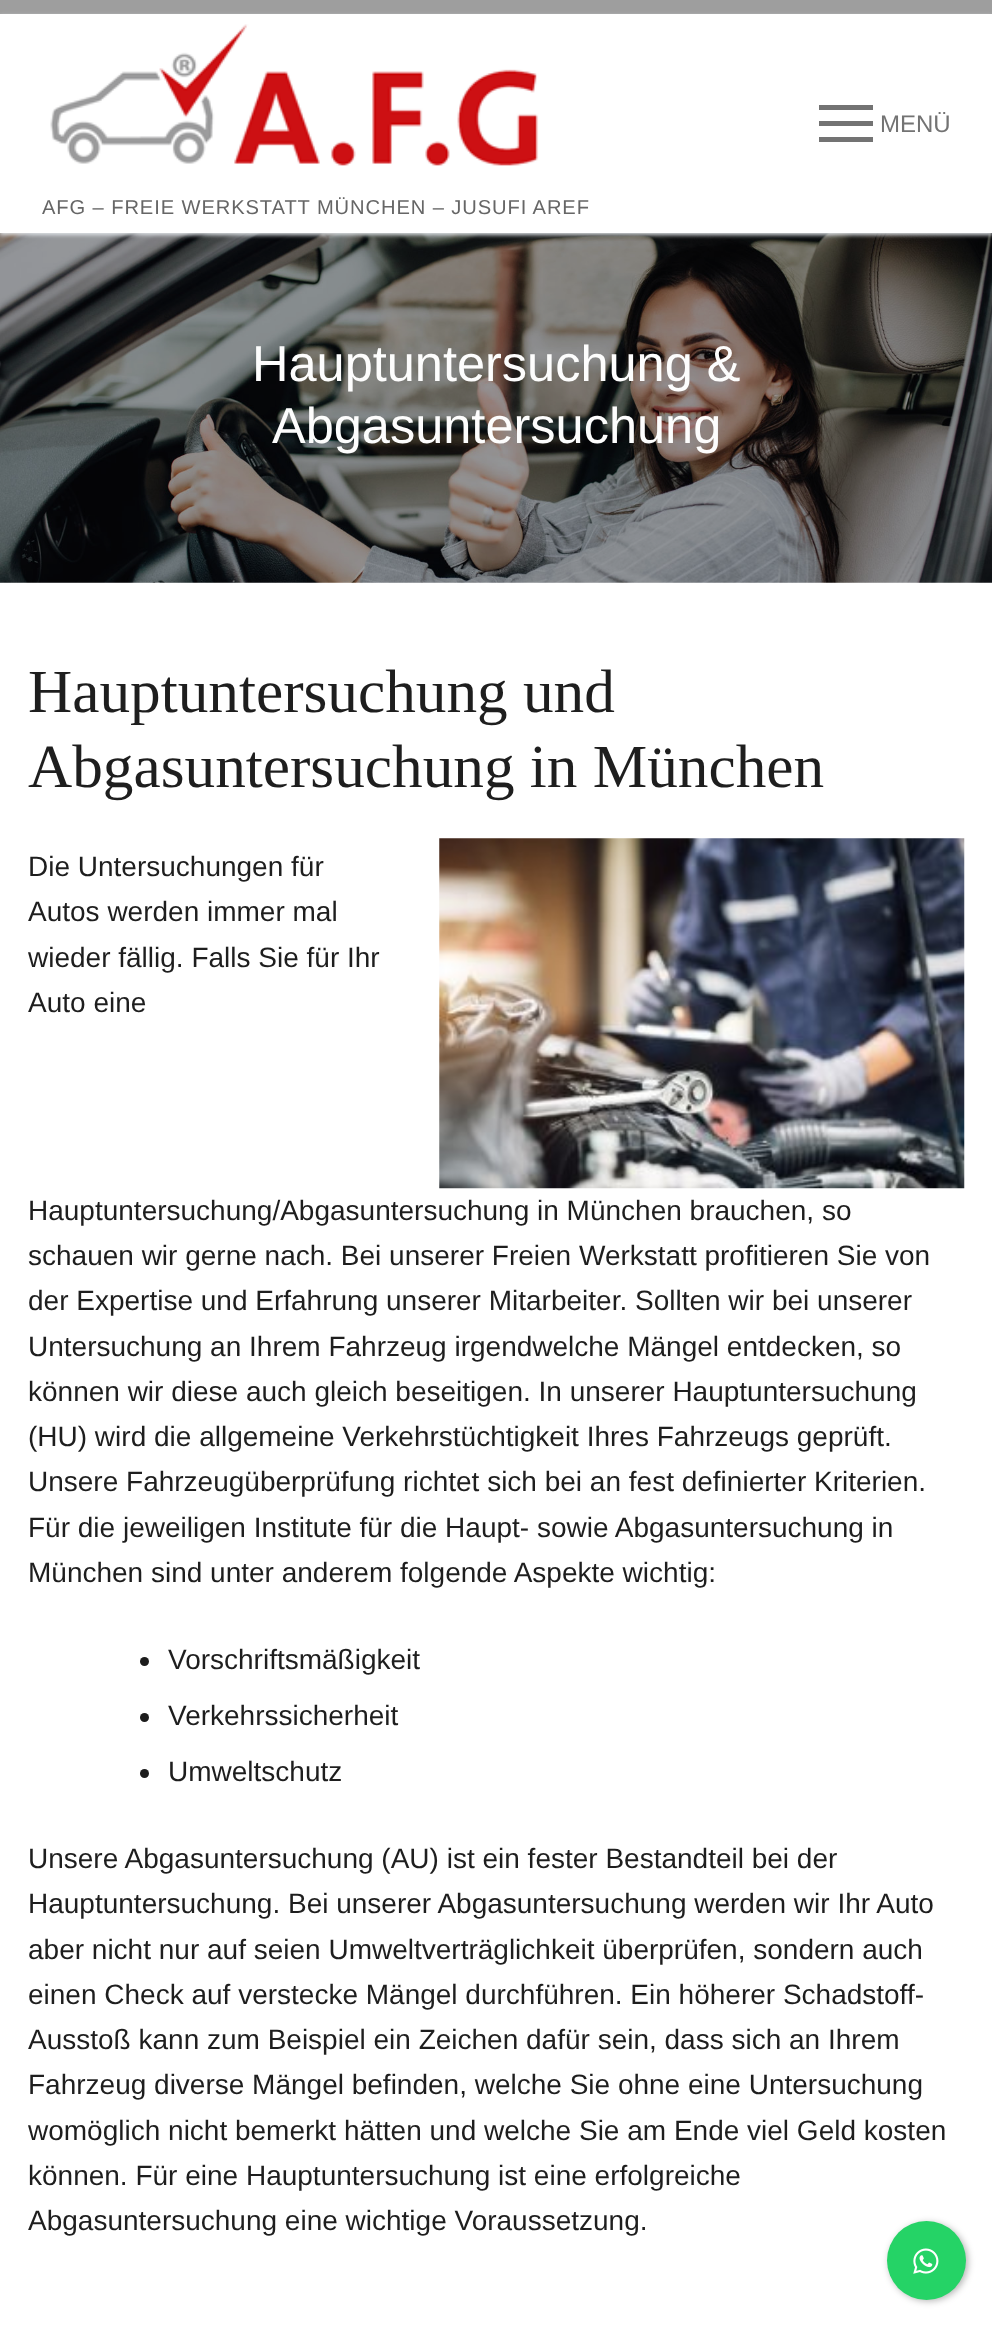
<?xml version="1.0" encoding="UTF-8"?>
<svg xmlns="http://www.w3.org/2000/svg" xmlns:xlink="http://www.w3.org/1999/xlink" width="992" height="2325">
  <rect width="100%" height="100%" fill="#ffffff" />
  <rect width="992" height="14" fill="#9e9e9e" />
  <image x="0" y="233" width="992" height="350" xlink:href="image2.png" />
  <rect y="16" width="992" height="219" fill="#e1e5ea" filter="blur(2px)" />
  <rect y="14" width="992" height="219" fill="#ffffff" />
  <rect x="819" y="121" width="54" height="5" fill="#737373" />
  <rect x="819" y="105" width="54" height="5" fill="#737373" />
  <rect x="819" y="137" width="54" height="5" fill="#737373" />
  <image x="50" y="24" width="489" height="142" xlink:href="image1.png" />
  <image x="439" y="838" width="526" height="351" xlink:href="image3.png" />
  <circle cx="144.5" cy="1661.5" r="4.5" fill="#1c1c1c" />
  <circle cx="144.5" cy="1717.5" r="4.5" fill="#1c1c1c" />
  <circle cx="144.5" cy="1773.5" r="4.5" fill="#1c1c1c" />
  <rect x="889" y="2223" width="79" height="78" rx="39" fill="#000000" fill-opacity="0.3" filter="blur(3.5px)" />
  <circle cx="926.5" cy="2260.5" r="39.5" fill="#25d366" />
  <image x="913" y="2248" width="26" height="26" xlink:href="image4.png" />
  <text x="880" y="132" style="font-family: Liberation Sans; font-size: 24px; fill: #737373">MENÜ</text>
  <text x="42" y="214" style="font-family: Liberation Sans; font-size: 20.15px; letter-spacing: 0.9px; fill: #666666">AFG – FREIE WERKSTATT MÜNCHEN – JUSUFI AREF</text>
  <text x="252" y="381" style="font-family: Liberation Sans; font-size: 50.5px; fill: #fdfdfd">Hauptuntersuchung &amp;</text>
  <text x="272" y="443" style="font-family: Liberation Sans; font-size: 50.5px; fill: #fdfdfd">Abgasuntersuchung</text>
  <text x="28" y="712" style="font-family: Liberation Serif; font-size: 61.25px; fill: #1e1e1e">Hauptuntersuchung und</text>
  <text x="28" y="787" style="font-family: Liberation Serif; font-size: 61.25px; fill: #1e1e1e">Abgasuntersuchung in München</text>
  <text x="28" y="876" style="font-family: Liberation Sans; font-size: 28px; fill: #1e1e1e">Die Untersuchungen für</text>
  <text x="28" y="921" style="font-family: Liberation Sans; font-size: 28px; fill: #1e1e1e">Autos werden immer mal</text>
  <text x="28" y="967" style="font-family: Liberation Sans; font-size: 28px; fill: #1e1e1e">wieder fällig. Falls Sie für Ihr</text>
  <text x="28" y="1012" style="font-family: Liberation Sans; font-size: 28px; fill: #1e1e1e">Auto eine</text>
  <text x="28" y="1220" style="font-family: Liberation Sans; font-size: 28px; fill: #1e1e1e">Hauptuntersuchung/Abgasuntersuchung in München brauchen, so</text>
  <text x="28" y="1265" style="font-family: Liberation Sans; font-size: 28px; fill: #1e1e1e">schauen wir gerne nach. Bei unserer Freien Werkstatt profitieren Sie von</text>
  <text x="28" y="1310" style="font-family: Liberation Sans; font-size: 28px; fill: #1e1e1e">der Expertise und Erfahrung unserer Mitarbeiter. Sollten wir bei unserer</text>
  <text x="28" y="1356" style="font-family: Liberation Sans; font-size: 28px; fill: #1e1e1e">Untersuchung an Ihrem Fahrzeug irgendwelche Mängel entdecken, so</text>
  <text x="28" y="1401" style="font-family: Liberation Sans; font-size: 28px; fill: #1e1e1e">können wir diese auch gleich beseitigen. In unserer Hauptuntersuchung</text>
  <text x="28" y="1446" style="font-family: Liberation Sans; font-size: 28px; fill: #1e1e1e">(HU) wird die allgemeine Verkehrstüchtigkeit Ihres Fahrzeugs geprüft.</text>
  <text x="28" y="1491" style="font-family: Liberation Sans; font-size: 28px; fill: #1e1e1e">Unsere Fahrzeugüberprüfung richtet sich bei an fest definierter Kriterien.</text>
  <text x="28" y="1537" style="font-family: Liberation Sans; font-size: 28px; fill: #1e1e1e">Für die jeweiligen Institute für die Haupt- sowie Abgasuntersuchung in</text>
  <text x="28" y="1582" style="font-family: Liberation Sans; font-size: 28px; fill: #1e1e1e">München sind unter anderem folgende Aspekte wichtig:</text>
  <text x="168" y="1669" style="font-family: Liberation Sans; font-size: 28px; fill: #1e1e1e">Vorschriftsmäßigkeit</text>
  <text x="168" y="1725" style="font-family: Liberation Sans; font-size: 28px; fill: #1e1e1e">Verkehrssicherheit</text>
  <text x="168" y="1781" style="font-family: Liberation Sans; font-size: 28px; fill: #1e1e1e">Umweltschutz</text>
  <text x="28" y="1868" style="font-family: Liberation Sans; font-size: 28px; fill: #1e1e1e">Unsere Abgasuntersuchung (AU) ist ein fester Bestandteil bei der</text>
  <text x="28" y="1913" style="font-family: Liberation Sans; font-size: 28px; fill: #1e1e1e">Hauptuntersuchung. Bei unserer Abgasuntersuchung werden wir Ihr Auto</text>
  <text x="28" y="1959" style="font-family: Liberation Sans; font-size: 28px; fill: #1e1e1e">aber nicht nur auf seien Umweltverträglichkeit überprüfen, sondern auch</text>
  <text x="28" y="2004" style="font-family: Liberation Sans; font-size: 28px; fill: #1e1e1e">einen Check auf verstecke Mängel durchführen. Ein höherer Schadstoff-</text>
  <text x="28" y="2049" style="font-family: Liberation Sans; font-size: 28px; fill: #1e1e1e">Ausstoß kann zum Beispiel ein Zeichen dafür sein, dass sich an Ihrem</text>
  <text x="28" y="2094" style="font-family: Liberation Sans; font-size: 28px; fill: #1e1e1e">Fahrzeug diverse Mängel befinden, welche Sie ohne eine Untersuchung</text>
  <text x="28" y="2140" style="font-family: Liberation Sans; font-size: 28px; fill: #1e1e1e">womöglich nicht bemerkt hätten und welche Sie am Ende viel Geld kosten</text>
  <text x="28" y="2185" style="font-family: Liberation Sans; font-size: 28px; fill: #1e1e1e">können. Für eine Hauptuntersuchung ist eine erfolgreiche</text>
  <text x="28" y="2230" style="font-family: Liberation Sans; font-size: 28px; fill: #1e1e1e">Abgasuntersuchung eine wichtige Voraussetzung.</text>
</svg>
